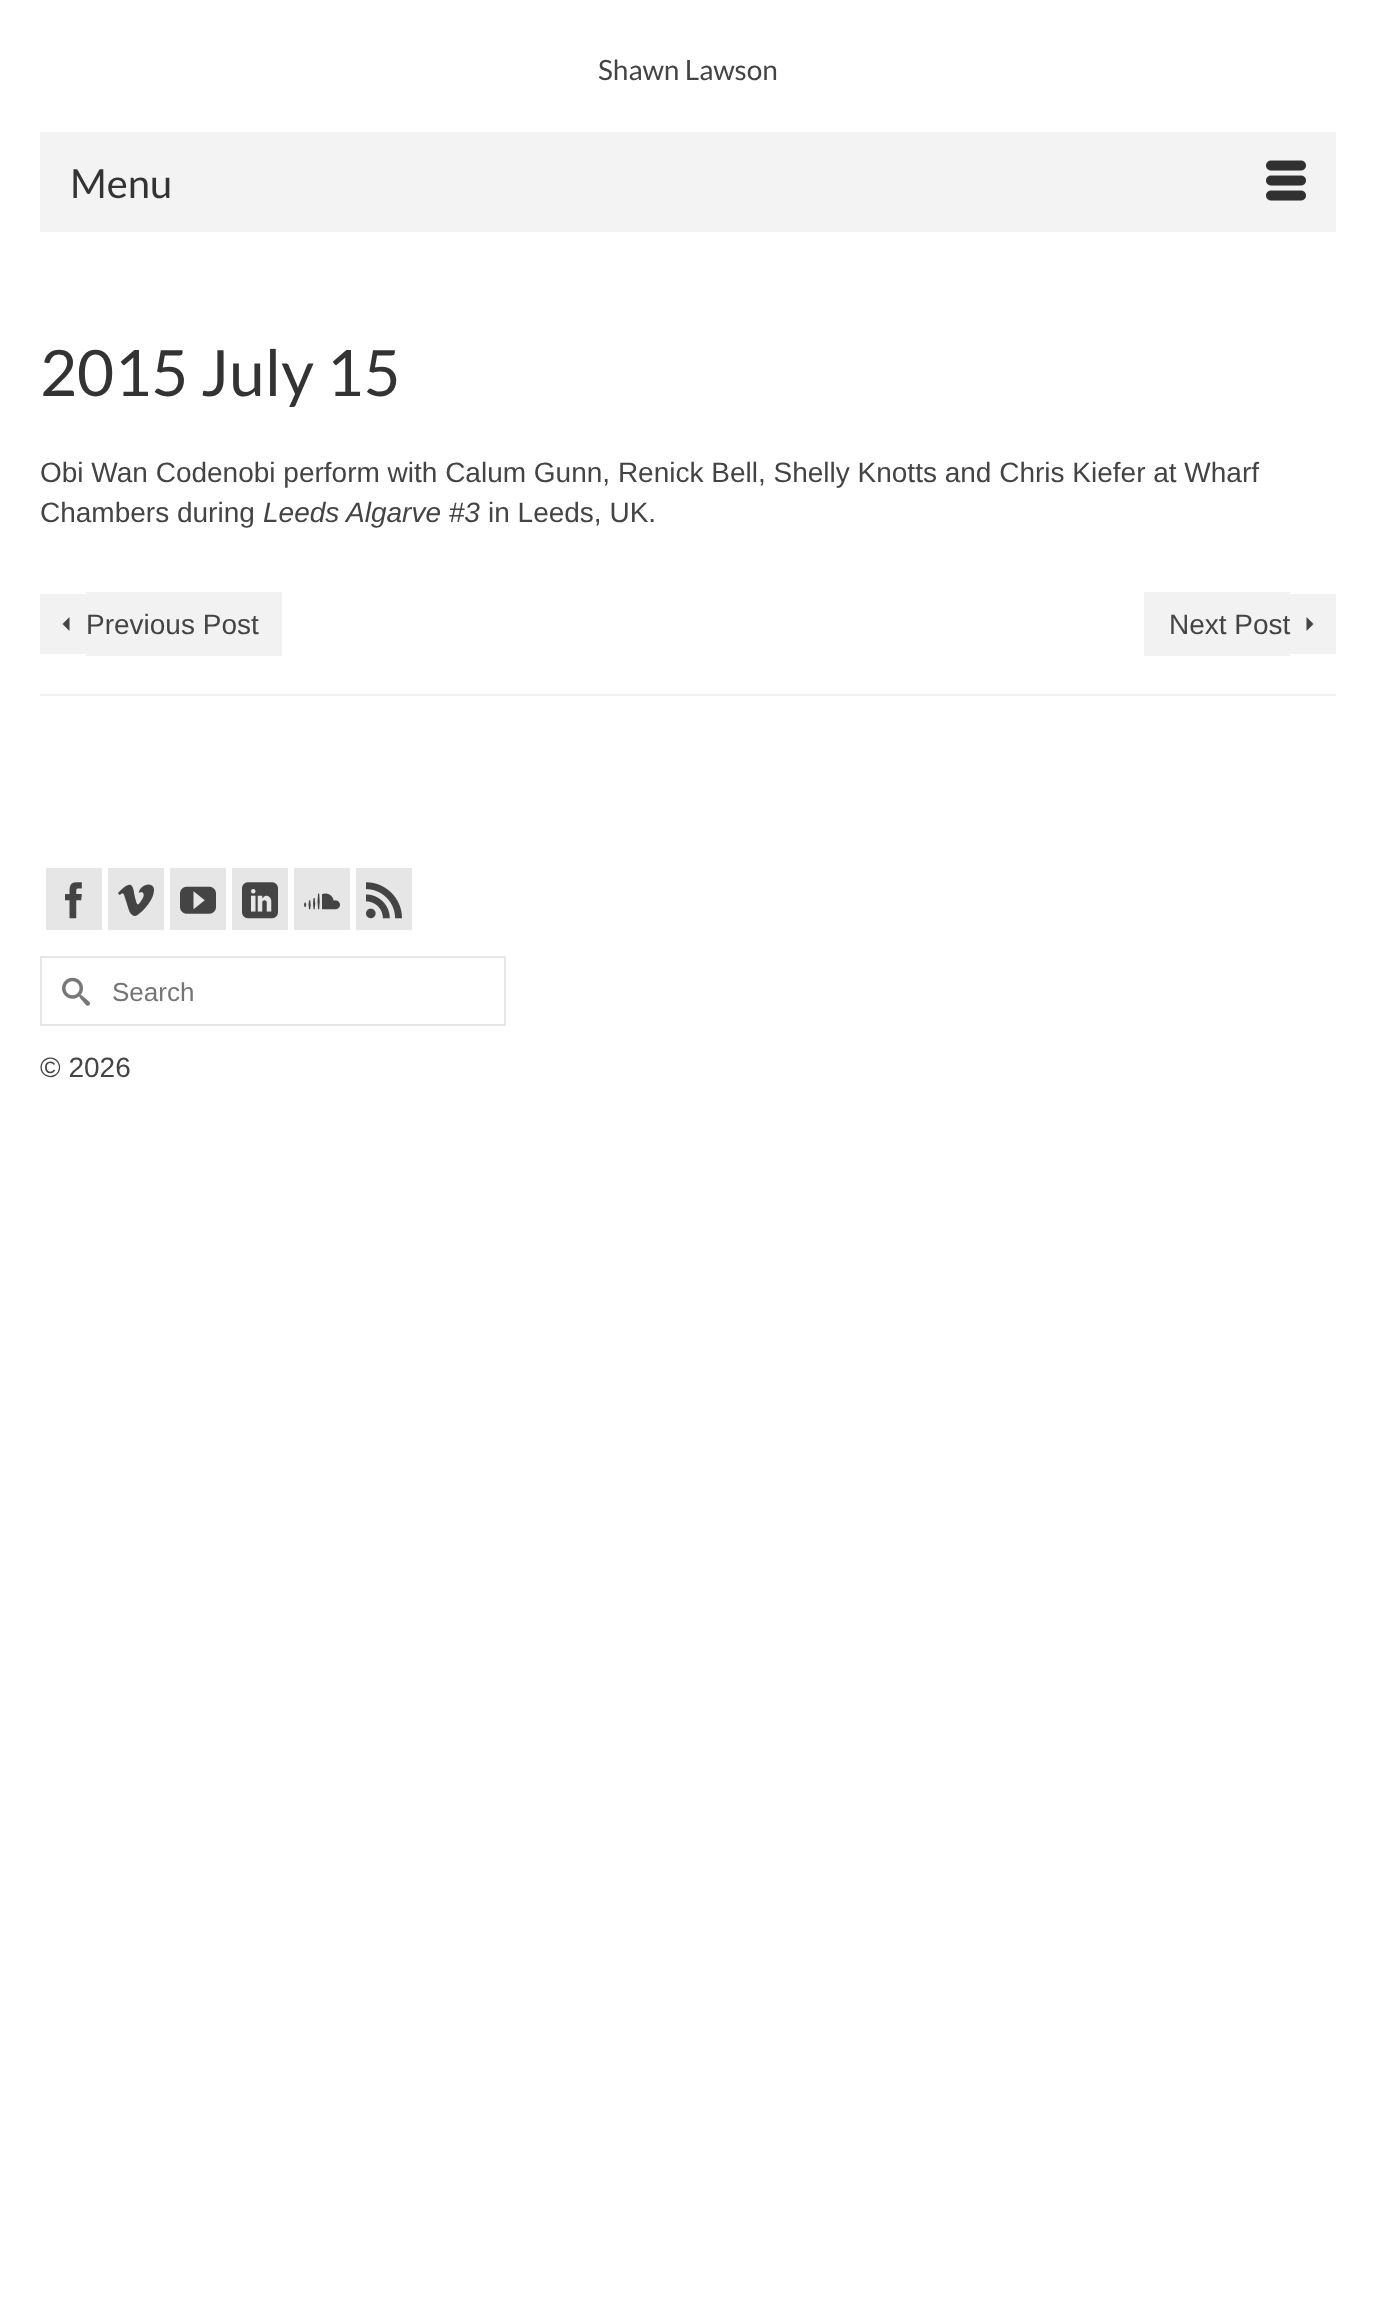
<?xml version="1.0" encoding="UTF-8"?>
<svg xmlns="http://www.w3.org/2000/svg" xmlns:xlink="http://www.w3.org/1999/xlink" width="1375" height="2323">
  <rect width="100%" height="100%" fill="#ffffff" />
  <rect x="40" y="132" width="1296" height="100" fill="#f3f3f3" />
  <image x="1266" y="160" width="40" height="41" xlink:href="image1.png" />
  <rect x="40" y="694" width="1296" height="2" fill="#f2f2f2" />
  <rect x="40" y="594" width="46" height="60" fill="#f2f2f2" />
  <rect x="86" y="592" width="196" height="64" fill="#f2f2f2" />
  <path d="M 69.5 617 l -7 7 l 7 7 z" fill="#444444" />
  <rect x="1144" y="592" width="146" height="64" fill="#f2f2f2" />
  <rect x="1290" y="594" width="46" height="60" fill="#f2f2f2" />
  <path d="M 1306.5 631 l 7 -7 l -7 -7 z" fill="#444444" />
  <rect x="46" y="868" width="56" height="62" fill="#e6e6e6" />
  <image x="65" y="882" width="17" height="37" xlink:href="image2.png" />
  <rect x="108" y="868" width="56" height="62" fill="#e6e6e6" />
  <image x="118" y="884" width="36" height="32" xlink:href="image3.png" />
  <rect x="170" y="868" width="56" height="62" fill="#e6e6e6" />
  <image x="180" y="886" width="36" height="28" xlink:href="image4.png" />
  <rect x="232" y="868" width="56" height="62" fill="#e6e6e6" />
  <image x="242" y="882" width="36" height="37" xlink:href="image5.png" />
  <rect x="294" y="868" width="56" height="62" fill="#e6e6e6" />
  <image x="304" y="893" width="36" height="17" xlink:href="image6.png" />
  <rect x="356" y="868" width="56" height="62" fill="#e6e6e6" />
  <image x="366" y="882" width="36" height="37" xlink:href="image7.png" />
  <rect x="41" y="957" width="464" height="68" fill="none" stroke="#e7e7e7" stroke-width="2" />
  <image x="62" y="977" width="28" height="29" xlink:href="image8.png" />
  <text x="598" y="80" style="font-family: Lato; font-size: 28px; fill: #444444">Shawn Lawson</text>
  <text x="70" y="198" style="font-family: Lato; font-size: 40px; fill: #333333">Menu</text>
  <text x="40" y="396" style="font-family: Lato; font-size: 64px; fill: #333333">2015 July 15</text>
  <text x="40" y="482" style="font-family: Liberation Sans; font-size: 28px; fill: #444444">Obi Wan Codenobi perform with Calum Gunn, Renick Bell, Shelly Knotts and Chris Kiefer at Wharf</text>
  <text x="40" y="522" style="font-family: Liberation Sans; font-size: 28px; fill: #444444">Chambers during</text>
  <text x="263" y="522" style="font-family: Liberation Sans; font-size: 28px; font-style: italic; fill: #444444">Leeds Algarve #3</text>
  <text x="488" y="522" style="font-family: Liberation Sans; font-size: 28px; fill: #444444">in Leeds, UK.</text>
  <text x="86" y="634" style="font-family: Liberation Sans; font-size: 28px; fill: #444444">Previous Post</text>
  <text x="1169" y="634" style="font-family: Liberation Sans; font-size: 28px; fill: #444444">Next Post</text>
  <text x="112" y="1001" style="font-family: Liberation Sans; font-size: 26px; fill: #757575">Search</text>
  <text x="40" y="1077" style="font-family: Liberation Sans; font-size: 28px; fill: #444444">© 2026</text>
</svg>
